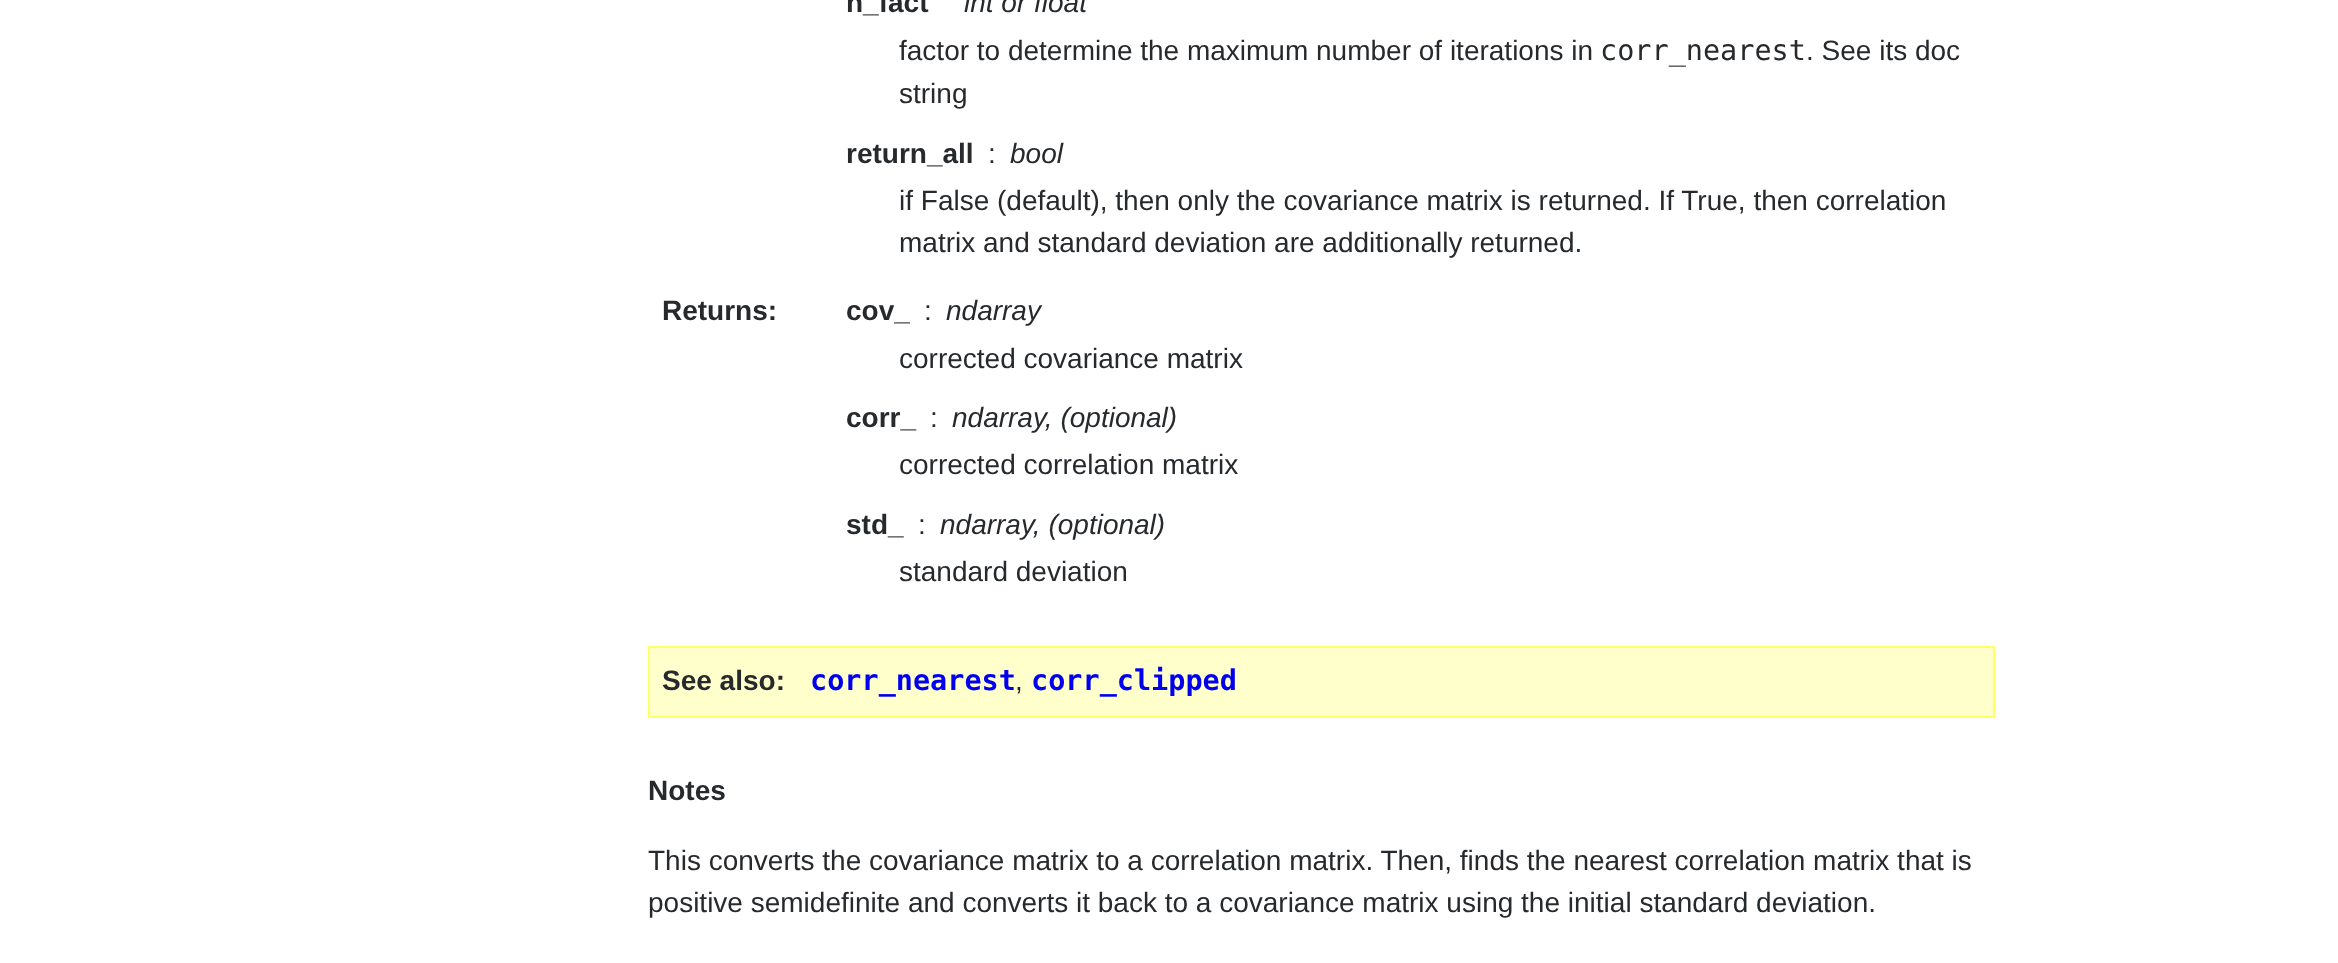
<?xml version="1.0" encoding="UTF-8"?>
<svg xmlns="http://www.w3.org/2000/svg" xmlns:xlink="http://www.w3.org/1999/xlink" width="2338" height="963">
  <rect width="100%" height="100%" fill="#ffffff" />
  <rect x="649" y="647" width="1345" height="70" fill="#ffffcc" stroke="#ffff66" stroke-width="2" />
  <text x="846" y="12" style="font-family: Liberation Sans; font-size: 28px; font-weight: bold; fill: #272a2d">n_fact</text>
  <text x="964" y="12" style="font-family: Liberation Sans; font-size: 28px; font-style: italic; fill: #272a2d">int or float</text>
  <text x="899" y="60" style="font-family: Liberation Sans; font-size: 28px; fill: #272a2d">factor to determine the maximum number of iterations in</text>
  <text x="1600" y="60" style="font-family: DejaVu Sans Mono; font-size: 28.5px; fill: #272a2d">corr_nearest</text>
  <text x="1806" y="60" style="font-family: Liberation Sans; font-size: 28px; fill: #272a2d">. See its doc</text>
  <text x="899" y="103" style="font-family: Liberation Sans; font-size: 28px; fill: #272a2d">string</text>
  <text x="846" y="163" style="font-family: Liberation Sans; font-size: 28px; font-weight: bold; fill: #272a2d">return_all</text>
  <text x="988" y="163" style="font-family: Liberation Sans; font-size: 28px; fill: #272a2d">:</text>
  <text x="1010" y="163" style="font-family: Liberation Sans; font-size: 28px; font-style: italic; fill: #272a2d">bool</text>
  <text x="899" y="210" style="font-family: Liberation Sans; font-size: 28px; fill: #272a2d">if False (default), then only the covariance matrix is returned. If True, then correlation</text>
  <text x="899" y="252" style="font-family: Liberation Sans; font-size: 28px; fill: #272a2d">matrix and standard deviation are additionally returned.</text>
  <text x="662" y="320" style="font-family: Liberation Sans; font-size: 28px; font-weight: bold; fill: #272a2d">Returns:</text>
  <text x="846" y="320" style="font-family: Liberation Sans; font-size: 28px; font-weight: bold; fill: #272a2d">cov_</text>
  <text x="924" y="320" style="font-family: Liberation Sans; font-size: 28px; fill: #272a2d">:</text>
  <text x="946" y="320" style="font-family: Liberation Sans; font-size: 28px; font-style: italic; fill: #272a2d">ndarray</text>
  <text x="899" y="368" style="font-family: Liberation Sans; font-size: 28px; fill: #272a2d">corrected covariance matrix</text>
  <text x="846" y="427" style="font-family: Liberation Sans; font-size: 28px; font-weight: bold; fill: #272a2d">corr_</text>
  <text x="930" y="427" style="font-family: Liberation Sans; font-size: 28px; fill: #272a2d">:</text>
  <text x="952" y="427" style="font-family: Liberation Sans; font-size: 28px; font-style: italic; fill: #272a2d">ndarray, (optional)</text>
  <text x="899" y="474" style="font-family: Liberation Sans; font-size: 28px; fill: #272a2d">corrected correlation matrix</text>
  <text x="846" y="534" style="font-family: Liberation Sans; font-size: 28px; font-weight: bold; fill: #272a2d">std_</text>
  <text x="918" y="534" style="font-family: Liberation Sans; font-size: 28px; fill: #272a2d">:</text>
  <text x="940" y="534" style="font-family: Liberation Sans; font-size: 28px; font-style: italic; fill: #272a2d">ndarray, (optional)</text>
  <text x="899" y="581" style="font-family: Liberation Sans; font-size: 28px; fill: #272a2d">standard deviation</text>
  <text x="662" y="690" style="font-family: Liberation Sans; font-size: 28px; font-weight: bold; fill: #272a2d">See also:</text>
  <text x="810" y="690" style="font-family: DejaVu Sans Mono; font-size: 28.5px; font-weight: bold; fill: #0000ee">corr_nearest</text>
  <text x="1015" y="690" style="font-family: Liberation Sans; font-size: 28px; fill: #272a2d">,</text>
  <text x="1031" y="690" style="font-family: DejaVu Sans Mono; font-size: 28.5px; font-weight: bold; fill: #0000ee">corr_clipped</text>
  <text x="648" y="800" style="font-family: Liberation Sans; font-size: 28px; font-weight: bold; fill: #272a2d">Notes</text>
  <text x="648" y="870" style="font-family: Liberation Sans; font-size: 28px; fill: #272a2d">This converts the covariance matrix to a correlation matrix. Then, finds the nearest correlation matrix that is</text>
  <text x="648" y="912" style="font-family: Liberation Sans; font-size: 28px; fill: #272a2d">positive semidefinite and converts it back to a covariance matrix using the initial standard deviation.</text>
</svg>
